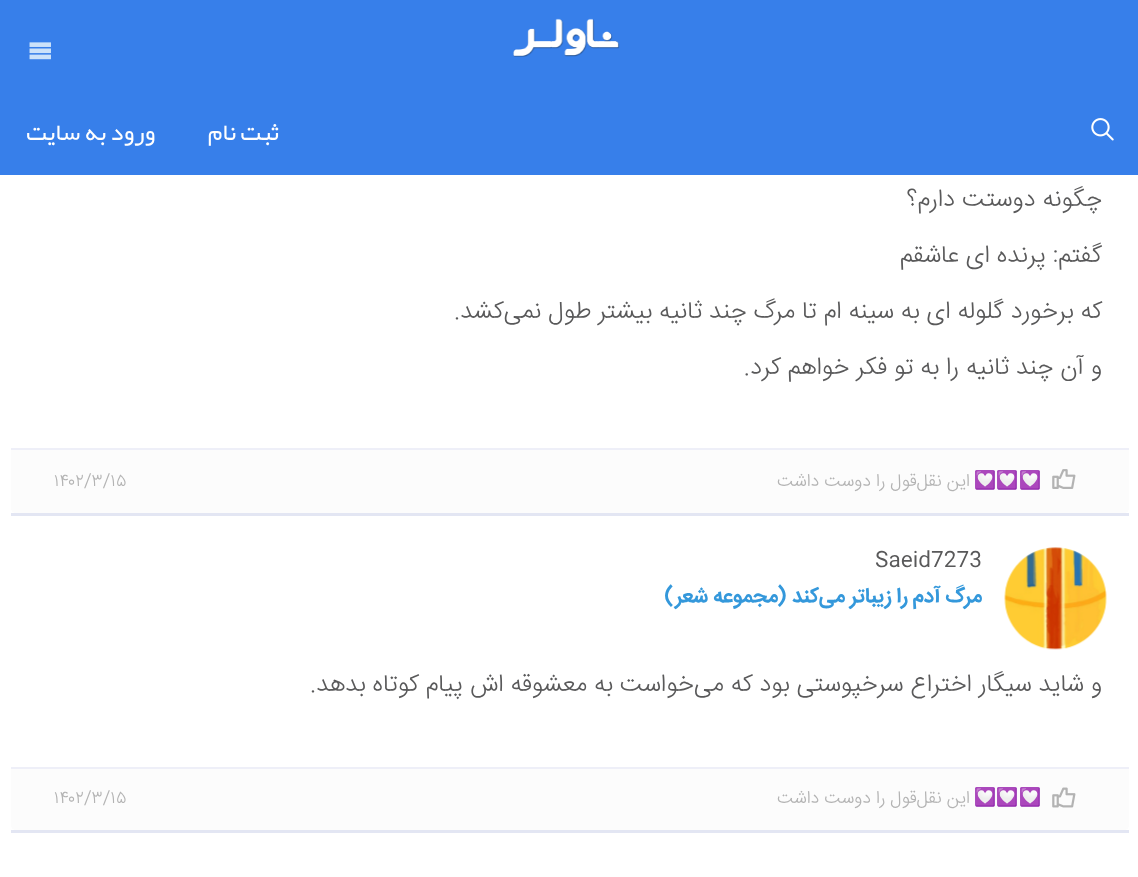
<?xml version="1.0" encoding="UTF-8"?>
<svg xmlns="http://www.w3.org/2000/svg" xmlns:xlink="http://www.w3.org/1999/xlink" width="1138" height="877">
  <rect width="100%" height="100%" fill="#ffffff" />
  <rect width="1138" height="175" fill="#377fea" />
  <image x="513" y="18" width="107" height="39" xlink:href="image1.png" />
  <image x="29" y="42" width="22" height="18" xlink:href="image2.png" />
  <image x="1091" y="118" width="23" height="23" xlink:href="image3.png" />
  <path d="M 11 448 h 1118 v 60 c 0 3 -2 5 -5 5 h -1108 c -3 0 -5 -2 -5 -5 z" fill="#fcfcfc" />
  <rect x="11" y="448" width="1118" height="2" fill="#eeeff8" />
  <image x="1052" y="469" width="24" height="20" xlink:href="image4.png" />
  <rect x="11" y="513" width="1118" height="3" fill="#e3e6f3" />
  <image x="1004" y="547" width="103" height="103" xlink:href="image5.png" />
  <path d="M 11 767 h 1118 v 58 c 0 3 -2 5 -5 5 h -1108 c -3 0 -5 -2 -5 -5 z" fill="#fcfcfc" />
  <rect x="11" y="767" width="1118" height="2" fill="#eeeff8" />
  <image x="1052" y="787" width="24" height="21" xlink:href="image6.png" />
  <rect x="11" y="830" width="1118" height="3" fill="#e3e6f3" />
  <text x="279" y="140" style="font-family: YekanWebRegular; font-size: 24.5px; direction: rtl; fill: #ffffff">ثبت نام</text>
  <text x="155" y="140" style="font-family: YekanWebRegular; font-size: 24.5px; direction: rtl; fill: #ffffff">ورود به سایت</text>
  <text x="1102" y="206" style="font-family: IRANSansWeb; font-size: 24.5px; font-weight: 300; direction: rtl; fill: #59595a">چگونه دوستت دارم؟</text>
  <text x="1102" y="262" style="font-family: IRANSansWeb; font-size: 24.5px; font-weight: 300; direction: rtl; fill: #59595a">گفتم: پرنده ای عاشقم</text>
  <text x="1102" y="318" style="font-family: IRANSansWeb; font-size: 24.5px; font-weight: 300; direction: rtl; fill: #59595a">که برخورد گلوله ای به سینه ام تا مرگ چند ثانیه بیشتر طول نمی‌کشد.</text>
  <text x="1102" y="374" style="font-family: IRANSansWeb; font-size: 24.5px; font-weight: 300; direction: rtl; fill: #59595a">و آن چند ثانیه را به تو فکر خواهم کرد.</text>
  <text x="1041" y="486" style="font-family: Noto Color Emoji; font-size: 17.75px; direction: rtl; fill: #b3b3b3">💟💟💟</text>
  <text x="970" y="486" style="font-family: IRANSansWeb; font-size: 17.75px; font-weight: 300; direction: rtl; fill: #b3b3b3">این نقل‌قول را دوست داشت</text>
  <text x="54" y="486" style="font-family: IRANSansWeb; font-size: 17.75px; font-weight: 300; fill: #b3b3b3">۱۴۰۲/۳/۱۵</text>
  <text x="875" y="566" style="font-family: IRANSansWeb; font-size: 21px; fill: #59595a">Saeid7273</text>
  <text x="982" y="602" style="font-family: IRANSansWeb; font-size: 20.8px; font-weight: bold; direction: rtl; fill: #3498db">مرگ آدم را زیباتر می‌کند (مجموعه شعر)</text>
  <text x="1102" y="691" style="font-family: IRANSansWeb; font-size: 24.5px; font-weight: 300; direction: rtl; fill: #59595a">و شاید سیگار اختراع سرخپوستی بود که می‌خواست به معشوقه اش پیام کوتاه بدهد.</text>
  <text x="1041" y="803" style="font-family: Noto Color Emoji; font-size: 17.75px; direction: rtl; fill: #b3b3b3">💟💟💟</text>
  <text x="970" y="803" style="font-family: IRANSansWeb; font-size: 17.75px; font-weight: 300; direction: rtl; fill: #b3b3b3">این نقل‌قول را دوست داشت</text>
  <text x="54" y="803" style="font-family: IRANSansWeb; font-size: 17.75px; font-weight: 300; fill: #b3b3b3">۱۴۰۲/۳/۱۵</text>
</svg>
